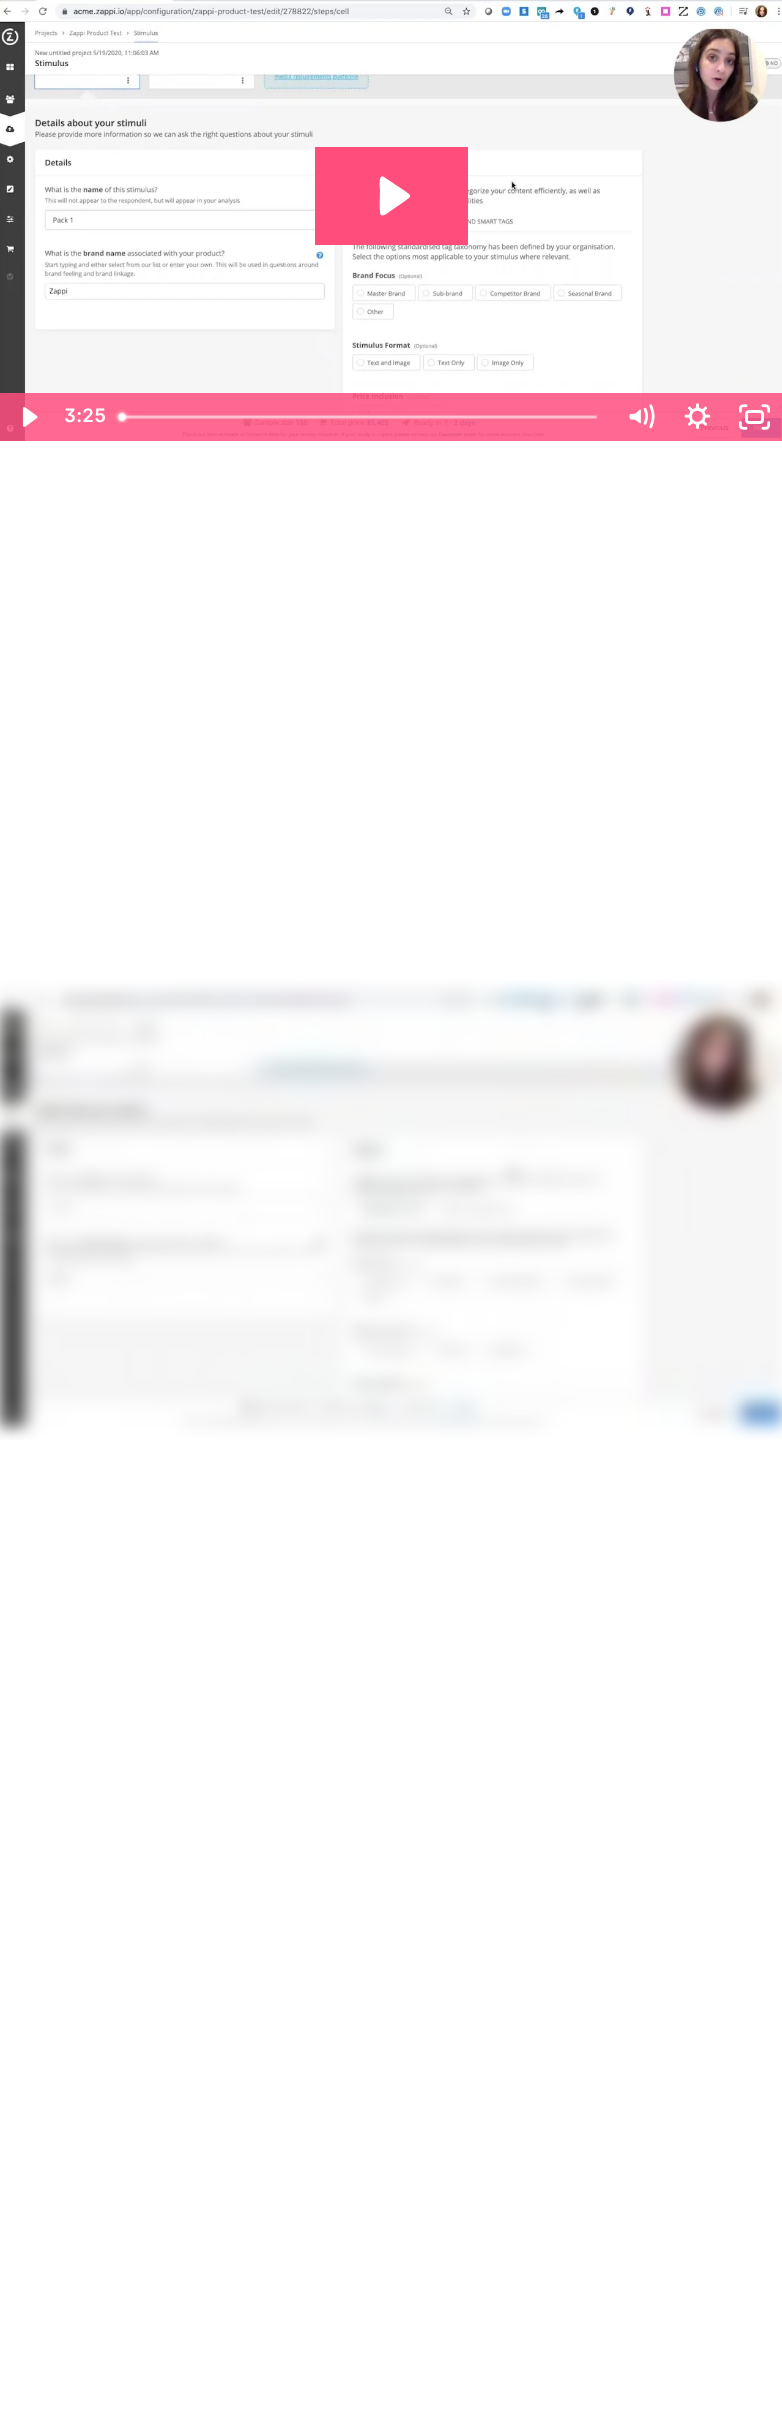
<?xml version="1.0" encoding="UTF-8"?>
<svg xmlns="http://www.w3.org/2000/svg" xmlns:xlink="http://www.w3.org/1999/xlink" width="782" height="2415">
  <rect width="100%" height="100%" fill="#ffffff" />
  <image x="0" y="0" width="782" height="441" xlink:href="image1.png" />
  <rect x="315" y="147" width="153" height="98" fill="#ff4d7c" />
  <path d="M 384 177 c -6 -4 -4 12 -4 13 c 0 4 -1 24 1 25 c 3 2 9 -4 11 -5 l 13 -9 c 7 -5 7 -5 0 -10 z" fill="#ffffff" fill-rule="evenodd" />
  <rect y="393" width="782" height="48" fill="#ff4d7c" fill-opacity="0.85" />
  <image x="22" y="407" width="16" height="20" xlink:href="image2.png" />
  <image x="114" y="409" width="484" height="16" xlink:href="image3.png" />
  <image x="629" y="404" width="26" height="25" xlink:href="image4.png" />
  <image x="684" y="403" width="27" height="26" xlink:href="image5.png" />
  <image x="738" y="404" width="33" height="26" xlink:href="image6.png" />
  <image x="0" y="980" width="782" height="460" xlink:href="image7.png" />
  <text x="64" y="422" style="font-family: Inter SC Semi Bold; font-size: 18.5px; font-weight: 600; letter-spacing: 0.5px; fill: #ffffff">3:25</text>
</svg>
